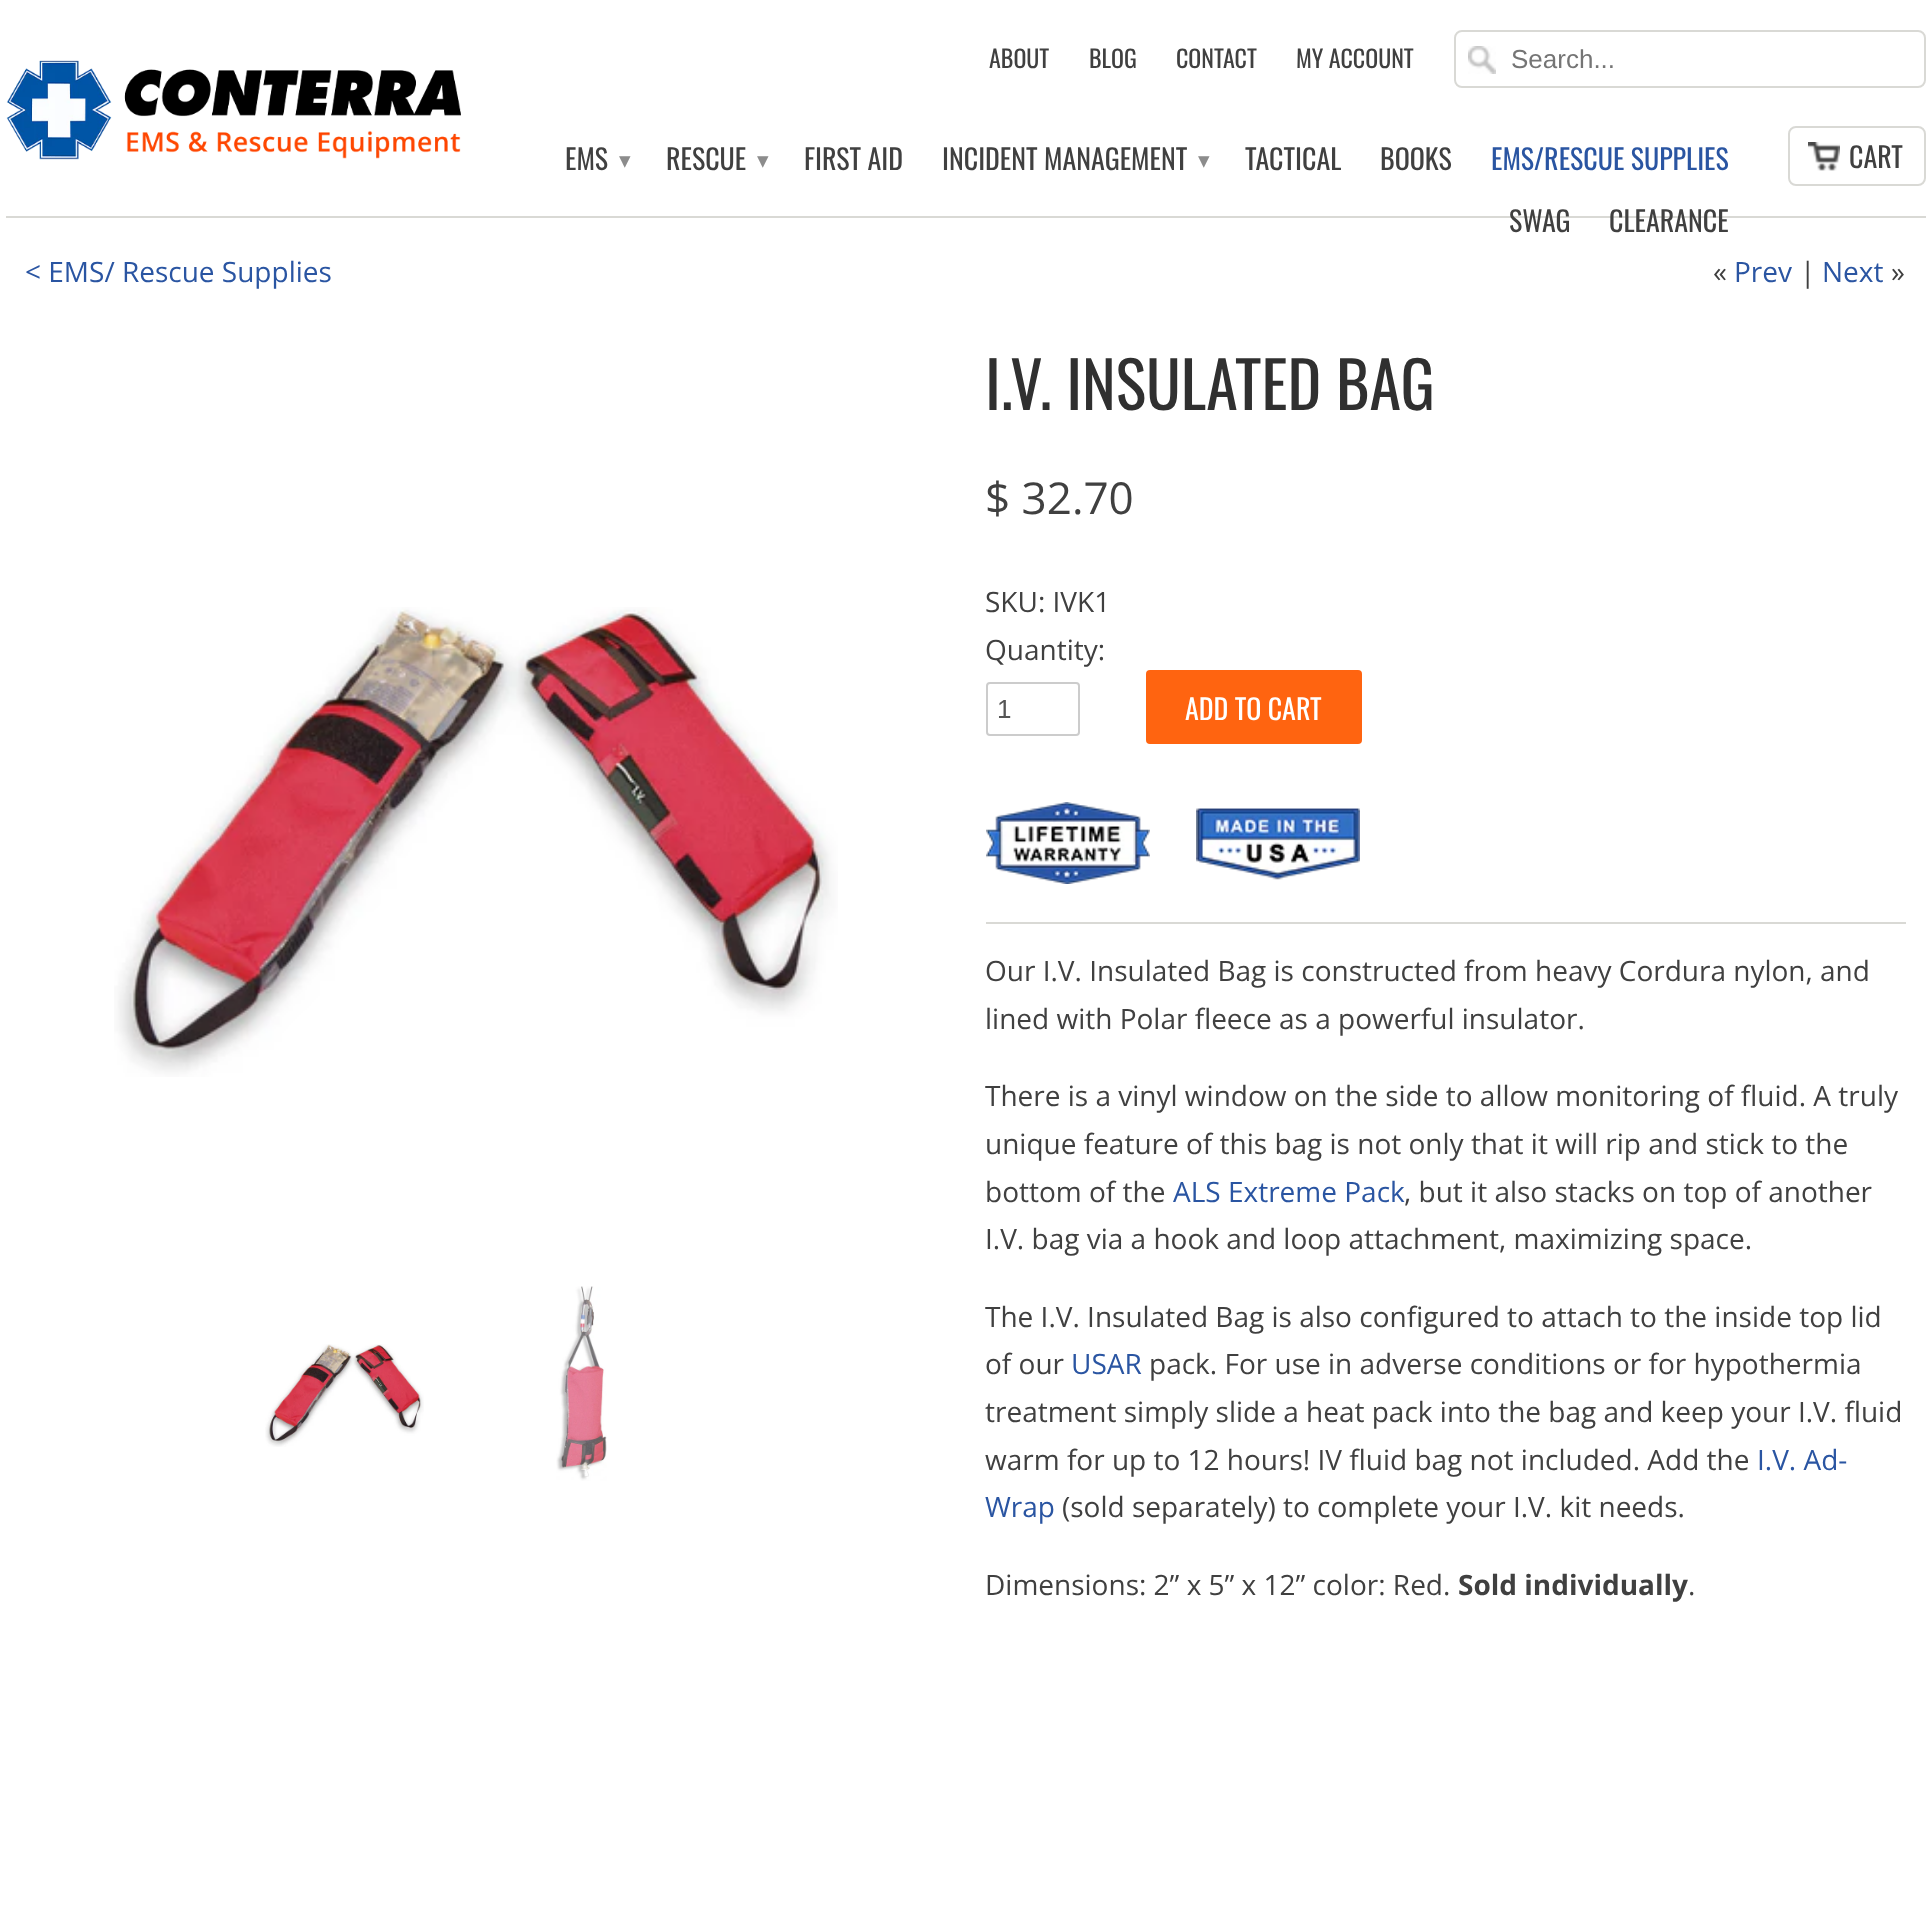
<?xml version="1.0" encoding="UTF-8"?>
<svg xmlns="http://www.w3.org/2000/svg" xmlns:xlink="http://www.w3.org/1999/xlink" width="1930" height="1924">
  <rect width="100%" height="100%" fill="#ffffff" />
  <rect x="6" y="216" width="1920" height="2" fill="#d9d9d5" />
  <image x="6" y="60" width="455" height="100" xlink:href="image1.png" />
  <image x="1468" y="46" width="28" height="28" xlink:href="image2.png" />
  <rect x="1455" y="31" width="470" height="56" rx="7" fill="none" stroke="#d9d9d5" stroke-width="2" />
  <image x="1808" y="142" width="32" height="29" xlink:href="image3.png" />
  <rect x="1789" y="127" width="136" height="58" rx="7" fill="none" stroke="#d9d9d5" stroke-width="2" />
  <image x="114" y="607" width="724" height="470" xlink:href="image4.png" />
  <image x="265" y="1344" width="159" height="103" xlink:href="image5.png" />
  <image x="556" y="1286" width="51" height="195" xlink:href="image6.png" />
  <rect x="987" y="683" width="92" height="52" rx="3" fill="none" stroke="#cccccc" stroke-width="2" />
  <rect x="1146" y="670" width="216" height="74" rx="4" fill="#ff6410" />
  <image x="986" y="802" width="164" height="82" xlink:href="image7.png" />
  <image x="1196" y="808" width="164" height="72" xlink:href="image8.png" />
  <rect x="986" y="922" width="920" height="2" fill="#d9d9d5" />
  <text x="989" y="68" style="font-family: Oswald; font-size: 24px; fill: #404040">ABOUT</text>
  <text x="1089" y="68" style="font-family: Oswald; font-size: 24px; fill: #404040">BLOG</text>
  <text x="1176" y="68" style="font-family: Oswald; font-size: 24px; fill: #404040">CONTACT</text>
  <text x="1296" y="68" style="font-family: Oswald; font-size: 24px; fill: #404040">MY ACCOUNT</text>
  <text x="1511" y="68" style="font-family: Liberation Sans; font-size: 26px; fill: #757575">Search...</text>
  <text x="565" y="170" style="font-family: Oswald; font-size: 28px; fill: #404040">EMS</text>
  <text x="619" y="168" style="font-family: DejaVu Sans; font-size: 23px; fill: #8c8c8c">▾</text>
  <text x="666" y="170" style="font-family: Oswald; font-size: 28px; fill: #404040">RESCUE</text>
  <text x="757" y="168" style="font-family: DejaVu Sans; font-size: 23px; fill: #8c8c8c">▾</text>
  <text x="804" y="170" style="font-family: Oswald; font-size: 28px; fill: #404040">FIRST AID</text>
  <text x="942" y="170" style="font-family: Oswald; font-size: 28px; fill: #404040">INCIDENT MANAGEMENT</text>
  <text x="1198" y="168" style="font-family: DejaVu Sans; font-size: 23px; fill: #8c8c8c">▾</text>
  <text x="1245" y="170" style="font-family: Oswald; font-size: 28px; fill: #404040">TACTICAL</text>
  <text x="1380" y="170" style="font-family: Oswald; font-size: 28px; fill: #404040">BOOKS</text>
  <text x="1491" y="170" style="font-family: Oswald; font-size: 28px; fill: #2a55a2">EMS/RESCUE SUPPLIES</text>
  <text x="1509" y="232" style="font-family: Oswald; font-size: 28px; fill: #404040">SWAG</text>
  <text x="1609" y="232" style="font-family: Oswald; font-size: 28px; fill: #404040">CLEARANCE</text>
  <text x="1849" y="168" style="font-family: Oswald; font-size: 28px; fill: #404040">CART</text>
  <text x="25" y="282" style="font-family: Open Sans; font-size: 28px; fill: #2a55a2">&lt; EMS/ Rescue Supplies</text>
  <text x="1713" y="282" style="font-family: Open Sans; font-size: 28px; fill: #404040">«</text>
  <text x="1734" y="282" style="font-family: Open Sans; font-size: 28px; fill: #2a55a2">Prev</text>
  <text x="1800" y="282" style="font-family: Open Sans; font-size: 28px; fill: #404040">|</text>
  <text x="1822" y="282" style="font-family: Open Sans; font-size: 28px; fill: #2a55a2">Next</text>
  <text x="1891" y="282" style="font-family: Open Sans; font-size: 28px; fill: #404040">»</text>
  <text x="985" y="410" style="font-family: Oswald; font-size: 64px; fill: #303030">I.V. INSULATED BAG</text>
  <text x="985" y="514" style="font-family: Open Sans; font-size: 44px; fill: #404040">$ 32.70</text>
  <text x="985" y="612" style="font-family: Open Sans; font-size: 28px; fill: #404040">SKU: IVK1</text>
  <text x="985" y="660" style="font-family: Open Sans; font-size: 28px; fill: #404040">Quantity:</text>
  <text x="997" y="718" style="font-family: Liberation Sans; font-size: 26px; fill: #555555">1</text>
  <text x="1185" y="720" style="font-family: Oswald; font-size: 28px; fill: #ffffff">ADD TO CART</text>
  <text x="985" y="981" style="font-family: Open Sans; font-size: 28px; fill: #404040">Our I.V. Insulated Bag is constructed from heavy Cordura nylon, and</text>
  <text x="985" y="1029" style="font-family: Open Sans; font-size: 28px; fill: #404040">lined with Polar fleece as a powerful insulator.</text>
  <text x="985" y="1106" style="font-family: Open Sans; font-size: 28px; fill: #404040">There is a vinyl window on the side to allow monitoring of fluid. A truly</text>
  <text x="985" y="1154" style="font-family: Open Sans; font-size: 28px; fill: #404040">unique feature of this bag is not only that it will rip and stick to the</text>
  <text x="985" y="1202" style="font-family: Open Sans; font-size: 28px; fill: #404040">bottom of the</text>
  <text x="1173" y="1202" style="font-family: Open Sans; font-size: 28px; fill: #2a55a2">ALS Extreme Pack</text>
  <text x="1404" y="1202" style="font-family: Open Sans; font-size: 28px; fill: #404040">, but it also stacks on top of another</text>
  <text x="985" y="1249" style="font-family: Open Sans; font-size: 28px; fill: #404040">I.V. bag via a hook and loop attachment, maximizing space.</text>
  <text x="985" y="1327" style="font-family: Open Sans; font-size: 28px; fill: #404040">The I.V. Insulated Bag is also configured to attach to the inside top lid</text>
  <text x="985" y="1374" style="font-family: Open Sans; font-size: 28px; fill: #404040">of our</text>
  <text x="1071" y="1374" style="font-family: Open Sans; font-size: 28px; fill: #2a55a2">USAR</text>
  <text x="1149" y="1374" style="font-family: Open Sans; font-size: 28px; fill: #404040">pack. For use in adverse conditions or for hypothermia</text>
  <text x="985" y="1422" style="font-family: Open Sans; font-size: 28px; fill: #404040">treatment simply slide a heat pack into the bag and keep your I.V. fluid</text>
  <text x="985" y="1470" style="font-family: Open Sans; font-size: 28px; fill: #404040">warm for up to 12 hours! IV fluid bag not included. Add the</text>
  <text x="1757" y="1470" style="font-family: Open Sans; font-size: 28px; fill: #2a55a2">I.V. Ad-</text>
  <text x="985" y="1517" style="font-family: Open Sans; font-size: 28px; fill: #2a55a2">Wrap</text>
  <text x="1062" y="1517" style="font-family: Open Sans; font-size: 28px; fill: #404040">(sold separately) to complete your I.V. kit needs.</text>
  <text x="985" y="1595" style="font-family: Open Sans; font-size: 28px; fill: #404040">Dimensions: 2” x 5” x 12” color: Red.</text>
  <text x="1458" y="1595" style="font-family: Open Sans; font-size: 28px; font-weight: bold; fill: #404040">Sold individually</text>
  <text x="1688" y="1595" style="font-family: Open Sans; font-size: 28px; fill: #404040">.</text>
</svg>
